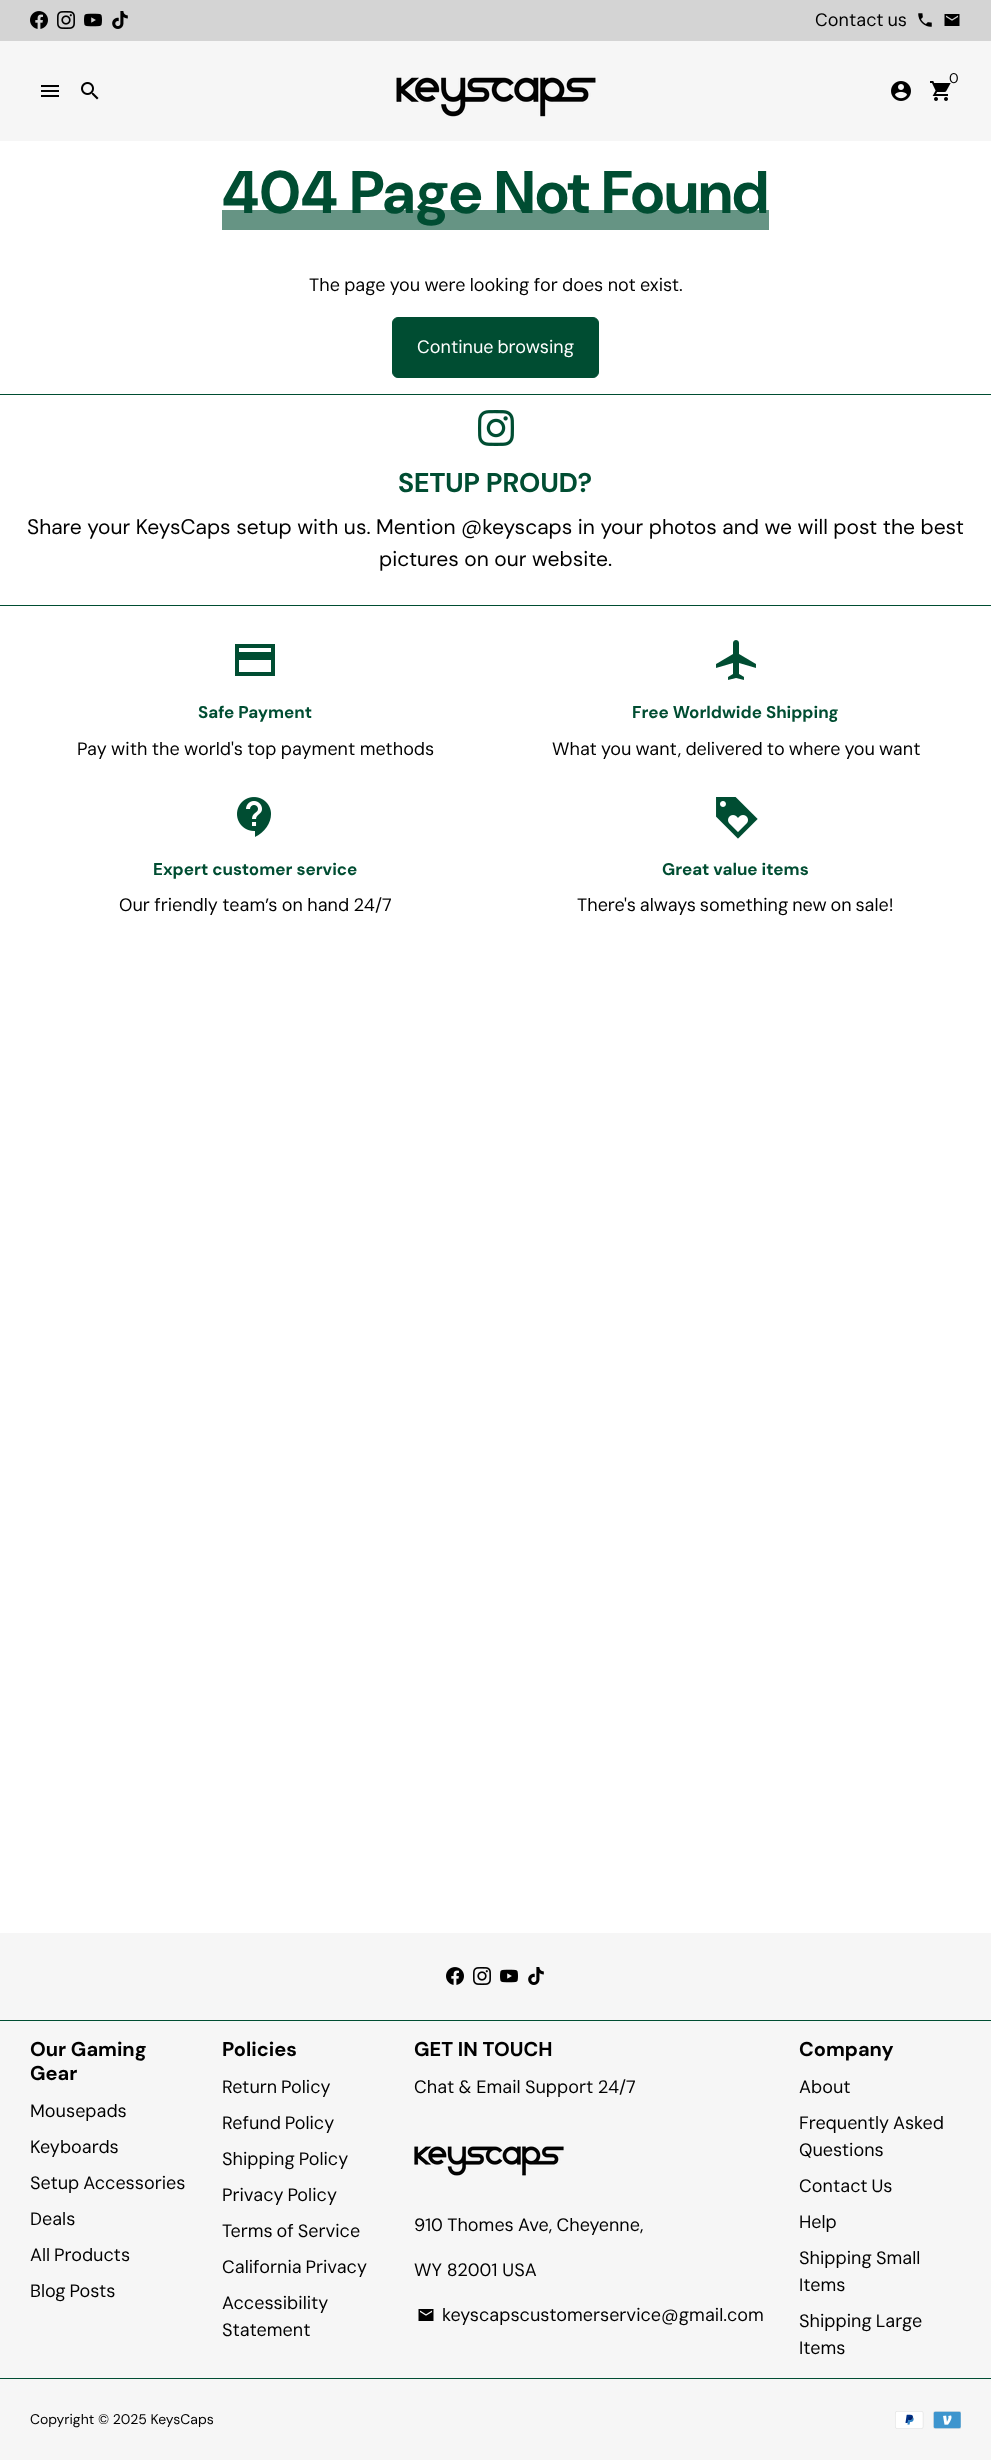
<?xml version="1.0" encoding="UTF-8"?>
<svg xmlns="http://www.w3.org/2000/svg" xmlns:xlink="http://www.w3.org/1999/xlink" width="991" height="2460">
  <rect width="100%" height="100%" fill="#ffffff" />
  <rect width="991" height="41" fill="#d4d4d4" />
  <image x="30" y="11" width="18" height="18" xlink:href="image1.png" />
  <image x="57" y="11" width="18" height="18" xlink:href="image2.png" />
  <image x="84" y="13" width="18" height="14" xlink:href="image3.png" />
  <image x="112" y="11" width="16" height="18" xlink:href="image4.png" />
  <image x="918" y="13" width="14" height="14" xlink:href="image5.png" />
  <image x="944" y="14" width="16" height="12" xlink:href="image6.png" />
  <rect y="41" width="991" height="100" fill="#f6f6f6" />
  <image x="41" y="85" width="18" height="12" xlink:href="image7.png" />
  <image x="81" y="82" width="18" height="18" xlink:href="image8.png" />
  <image x="396" y="77" width="200" height="40" xlink:href="image9.png" />
  <image x="930" y="81" width="21" height="20" xlink:href="image10.png" />
  <image x="891" y="81" width="20" height="20" xlink:href="image11.png" />
  <rect x="222" y="210" width="547" height="20" fill="#669484" />
  <rect x="392.5" y="317.5" width="206" height="60" rx="5.5" fill="#004d32" stroke="#004d32" />
  <rect y="394" width="991" height="1" fill="#004d32" />
  <image x="478" y="410" width="36" height="36" xlink:href="image12.png" />
  <rect y="605" width="991" height="1" fill="#004d32" />
  <path d="M 275 644 h -40 v 32 h 40 z m -4 28 h -32 v -12 h 32 z m 0 -20 h -32 v -4 h 32 z" fill="#004d32" />
  <image x="716" y="640" width="40" height="40" xlink:href="image13.png" />
  <image x="237" y="797" width="34" height="40" xlink:href="image14.png" />
  <image x="716" y="797" width="42" height="42" xlink:href="image15.png" />
  <rect y="1933" width="991" height="527" fill="#f6f6f6" />
  <rect y="2020" width="991" height="1" fill="#004d32" />
  <image x="446" y="1967" width="18" height="18" xlink:href="image16.png" />
  <image x="473" y="1967" width="18" height="18" xlink:href="image17.png" />
  <image x="500" y="1969" width="18" height="14" xlink:href="image18.png" />
  <image x="528" y="1967" width="16" height="18" xlink:href="image19.png" />
  <image x="414" y="2146" width="150" height="30" xlink:href="image20.png" />
  <image x="418" y="2309" width="16" height="12" xlink:href="image21.png" />
  <rect y="2378" width="991" height="1" fill="#004d32" />
  <image x="895" y="2411" width="29" height="18" xlink:href="image22.png" />
  <image x="933" y="2411" width="28" height="18" xlink:href="image23.png" />
  <text x="815" y="26" word-spacing="-1" style="font-family: 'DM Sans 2'; font-size: 18px; fill: #000000">Contact us</text>
  <text x="949" y="83" style="font-family: 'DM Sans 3'; font-size: 14px; fill: #000000">0</text>
  <text x="222" y="213" style="font-family: 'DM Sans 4'; font-size: 60px; font-weight: bold; fill: #004d32">404 Page Not Found</text>
  <text x="309" y="291" word-spacing="-0.5" style="font-family: 'DM Sans 2'; font-size: 18px; fill: #000000">The page you were looking for does not exist.</text>
  <text x="417" y="353" word-spacing="-1" style="font-family: 'DM Sans 2'; font-size: 18px; fill: #ffffff">Continue browsing</text>
  <text x="398" y="492" style="font-family: DM Sans; font-size: 27px; font-weight: bold; fill: #004d32">SETUP PROUD?</text>
  <text x="27" y="534" style="font-family: DM Sans; font-size: 21px; fill: #000000">Share your KeysCaps setup with us. Mention @keyscaps in your photos and we will post the best</text>
  <text x="379" y="566" style="font-family: DM Sans; font-size: 21px; fill: #000000">pictures on our website.</text>
  <text x="198" y="718" style="font-family: 'DM Sans 2'; font-size: 17px; font-weight: bold; fill: #004d32">Safe Payment</text>
  <text x="77" y="755" word-spacing="-0.5" style="font-family: 'DM Sans 2'; font-size: 18px; fill: #000000">Pay with the world's top payment methods</text>
  <text x="632" y="718" style="font-family: 'DM Sans 2'; font-size: 17px; font-weight: bold; fill: #004d32">Free Worldwide Shipping</text>
  <text x="552" y="755" word-spacing="-0.75" style="font-family: 'DM Sans 2'; font-size: 18px; fill: #000000">What you want, delivered to where you want</text>
  <text x="153" y="875" style="font-family: 'DM Sans 2'; font-size: 17px; font-weight: bold; fill: #004d32">Expert customer service</text>
  <text x="119" y="911" word-spacing="-0.5" style="font-family: 'DM Sans 2'; font-size: 18px; fill: #000000">Our friendly team’s on hand 24/7</text>
  <text x="662" y="875" style="font-family: 'DM Sans 2'; font-size: 17px; font-weight: bold; fill: #004d32">Great value items</text>
  <text x="577" y="911" word-spacing="-1" style="font-family: 'DM Sans 2'; font-size: 18px; fill: #000000">There's always something new on sale!</text>
  <text x="30" y="2056" style="font-family: 'DM Sans 3'; font-size: 20px; font-weight: bold; fill: #000000">Our Gaming</text>
  <text x="30" y="2080" style="font-family: 'DM Sans 3'; font-size: 20px; font-weight: bold; fill: #000000">Gear</text>
  <text x="30" y="2117" style="font-family: 'DM Sans 2'; font-size: 18px; fill: #000000">Mousepads</text>
  <text x="30" y="2153" style="font-family: 'DM Sans 2'; font-size: 18px; fill: #000000">Keyboards</text>
  <text x="30" y="2189" word-spacing="-1" style="font-family: 'DM Sans 2'; font-size: 18px; fill: #000000">Setup Accessories</text>
  <text x="30" y="2225" style="font-family: 'DM Sans 2'; font-size: 18px; fill: #000000">Deals</text>
  <text x="30" y="2261" word-spacing="-1" style="font-family: 'DM Sans 2'; font-size: 18px; fill: #000000">All Products</text>
  <text x="30" y="2297" word-spacing="-1" style="font-family: 'DM Sans 2'; font-size: 18px; fill: #000000">Blog Posts</text>
  <text x="222" y="2056" style="font-family: 'DM Sans 3'; font-size: 20px; font-weight: bold; fill: #000000">Policies</text>
  <text x="222" y="2093" word-spacing="-1" style="font-family: 'DM Sans 2'; font-size: 18px; fill: #000000">Return Policy</text>
  <text x="222" y="2129" word-spacing="-1" style="font-family: 'DM Sans 2'; font-size: 18px; fill: #000000">Refund Policy</text>
  <text x="222" y="2165" word-spacing="-1" style="font-family: 'DM Sans 2'; font-size: 18px; fill: #000000">Shipping Policy</text>
  <text x="222" y="2201" word-spacing="-1" style="font-family: 'DM Sans 2'; font-size: 18px; fill: #000000">Privacy Policy</text>
  <text x="222" y="2237" word-spacing="-1" style="font-family: 'DM Sans 2'; font-size: 18px; fill: #000000">Terms of Service</text>
  <text x="222" y="2273" word-spacing="-1" style="font-family: 'DM Sans 2'; font-size: 18px; fill: #000000">California Privacy</text>
  <text x="222" y="2309" style="font-family: 'DM Sans 2'; font-size: 18px; fill: #000000">Accessibility</text>
  <text x="222" y="2336" style="font-family: 'DM Sans 2'; font-size: 18px; fill: #000000">Statement</text>
  <text x="414" y="2056" style="font-family: 'DM Sans 3'; font-size: 20px; font-weight: bold; fill: #000000">GET IN TOUCH</text>
  <text x="414" y="2093" word-spacing="-0.5" style="font-family: 'DM Sans 2'; font-size: 18px; fill: #000000">Chat &amp; Email Support 24/7</text>
  <text x="414" y="2231" word-spacing="-0.5" style="font-family: 'DM Sans 2'; font-size: 18px; fill: #000000">910 Thomes Ave, Cheyenne,</text>
  <text x="414" y="2276" style="font-family: 'DM Sans 2'; font-size: 18px; fill: #000000">WY 82001 USA</text>
  <text x="442" y="2321" style="font-family: 'DM Sans 2'; font-size: 18px; fill: #000000">keyscapscustomerservice@gmail.com</text>
  <text x="799" y="2056" style="font-family: 'DM Sans 3'; font-size: 20px; font-weight: bold; fill: #000000">Company</text>
  <text x="799" y="2093" style="font-family: 'DM Sans 2'; font-size: 18px; fill: #000000">About</text>
  <text x="799" y="2129" word-spacing="-1" style="font-family: 'DM Sans 2'; font-size: 18px; fill: #000000">Frequently Asked</text>
  <text x="799" y="2156" style="font-family: 'DM Sans 2'; font-size: 18px; fill: #000000">Questions</text>
  <text x="799" y="2192" word-spacing="-1" style="font-family: 'DM Sans 2'; font-size: 18px; fill: #000000">Contact Us</text>
  <text x="799" y="2228" style="font-family: 'DM Sans 2'; font-size: 18px; fill: #000000">Help</text>
  <text x="799" y="2264" word-spacing="-0.75" style="font-family: 'DM Sans 2'; font-size: 18px; fill: #000000">Shipping Small</text>
  <text x="799" y="2291" style="font-family: 'DM Sans 2'; font-size: 18px; fill: #000000">Items</text>
  <text x="799" y="2327" word-spacing="-1" style="font-family: 'DM Sans 2'; font-size: 18px; fill: #000000">Shipping Large</text>
  <text x="799" y="2354" style="font-family: 'DM Sans 2'; font-size: 18px; fill: #000000">Items</text>
  <text x="30" y="2424" style="font-family: 'DM Sans 3'; font-size: 14px; fill: #000000">Copyright © 2025 KeysCaps</text>
</svg>
